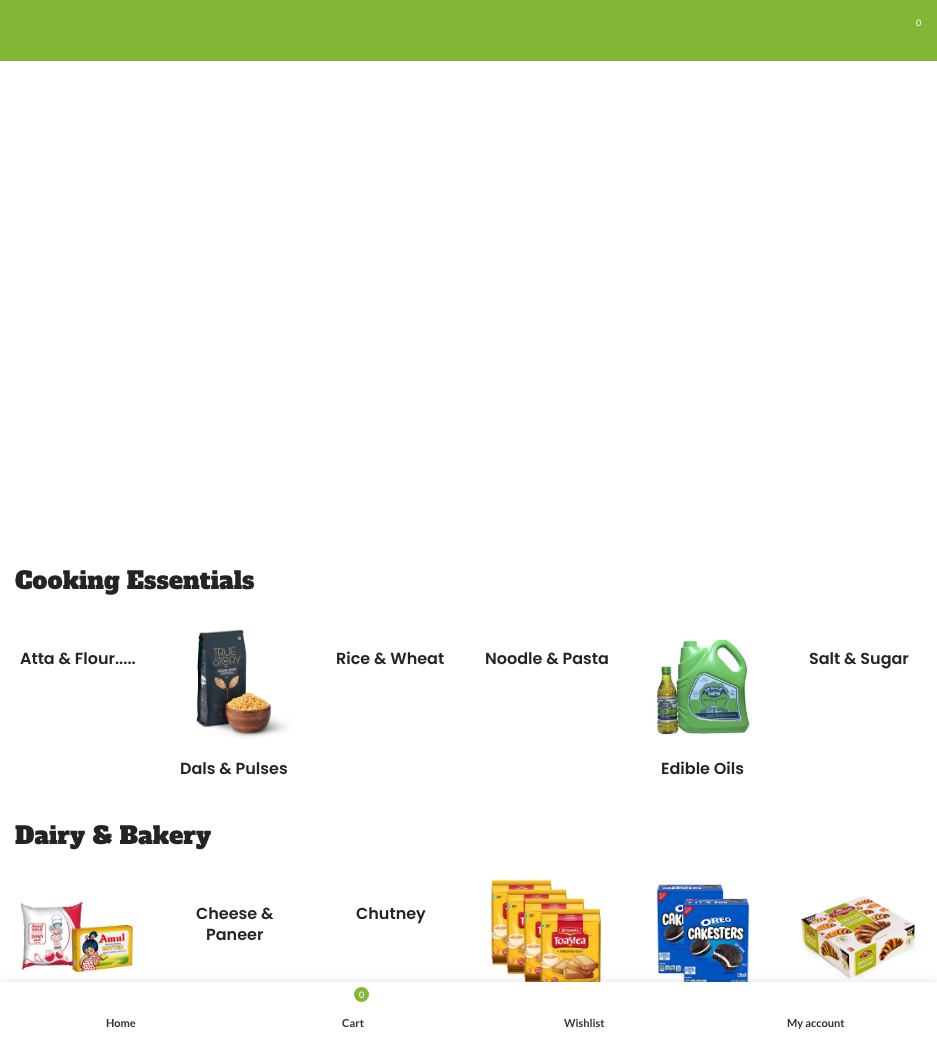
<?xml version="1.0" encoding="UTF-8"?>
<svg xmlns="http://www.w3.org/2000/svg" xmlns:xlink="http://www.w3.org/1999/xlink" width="937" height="1037">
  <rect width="100%" height="100%" fill="#ffffff" />
  <rect width="937" height="60" fill="#82b735" />
  <rect y="60" width="937" height="1" fill="#82ac44" />
  <image x="196" y="629" width="97" height="110" xlink:href="image1.png" />
  <image x="654" y="638" width="97" height="98" xlink:href="image2.png" />
  <image x="20" y="901" width="114" height="72" xlink:href="image3.png" />
  <image x="491" y="879" width="110" height="103" xlink:href="image4.png" />
  <image x="656" y="884" width="94" height="98" xlink:href="image5.png" />
  <image x="801" y="896" width="120" height="83" xlink:href="image6.png" />
  <rect y="982" width="937" height="55" fill="#000000" fill-opacity="0.12" filter="blur(4.5px)" />
  <rect y="982" width="937" height="55" fill="#ffffff" />
  <circle cx="361.5" cy="994.5" r="7.5" fill="#83b735" />
  <text x="916" y="26" style="font-family: Lato; font-size: 9px; fill: #ffffff">0</text>
  <text x="15" y="589" style="font-family: Alfa Slab One; font-size: 24px; fill: #242424">Cooking Essentials</text>
  <text x="20" y="664" style="font-family: Poppins; font-size: 16px; font-weight: 600; fill: #242424">Atta &amp; Flour.....</text>
  <text x="336" y="664" style="font-family: Poppins; font-size: 16px; font-weight: 600; fill: #242424">Rice &amp; Wheat</text>
  <text x="485" y="664" style="font-family: Poppins; font-size: 16px; font-weight: 600; fill: #242424">Noodle &amp; Pasta</text>
  <text x="809" y="664" style="font-family: Poppins; font-size: 16px; font-weight: 600; fill: #242424">Salt &amp; Sugar</text>
  <text x="180" y="774" style="font-family: Poppins; font-size: 16px; font-weight: 600; fill: #242424">Dals &amp; Pulses</text>
  <text x="661" y="774" style="font-family: Poppins; font-size: 16px; font-weight: 600; fill: #242424">Edible Oils</text>
  <text x="15" y="844" style="font-family: Alfa Slab One; font-size: 24px; fill: #242424">Dairy &amp; Bakery</text>
  <text x="196" y="919" style="font-family: Poppins; font-size: 16px; font-weight: 600; fill: #242424">Cheese &amp;</text>
  <text x="206" y="940" style="font-family: Poppins; font-size: 16px; font-weight: 600; fill: #242424">Paneer</text>
  <text x="356" y="919" style="font-family: Poppins; font-size: 16px; font-weight: 600; fill: #242424">Chutney</text>
  <text x="106" y="1027" style="font-family: Lato; font-size: 11px; font-weight: bold; fill: #333333">Home</text>
  <text x="359" y="998" style="font-family: Lato; font-size: 9px; fill: #ffffff">0</text>
  <text x="342" y="1027" style="font-family: Lato; font-size: 11px; font-weight: bold; fill: #333333">Cart</text>
  <text x="564" y="1027" style="font-family: Lato; font-size: 11px; font-weight: bold; fill: #333333">Wishlist</text>
  <text x="787" y="1027" style="font-family: Lato; font-size: 11px; font-weight: bold; fill: #333333">My account</text>
</svg>
